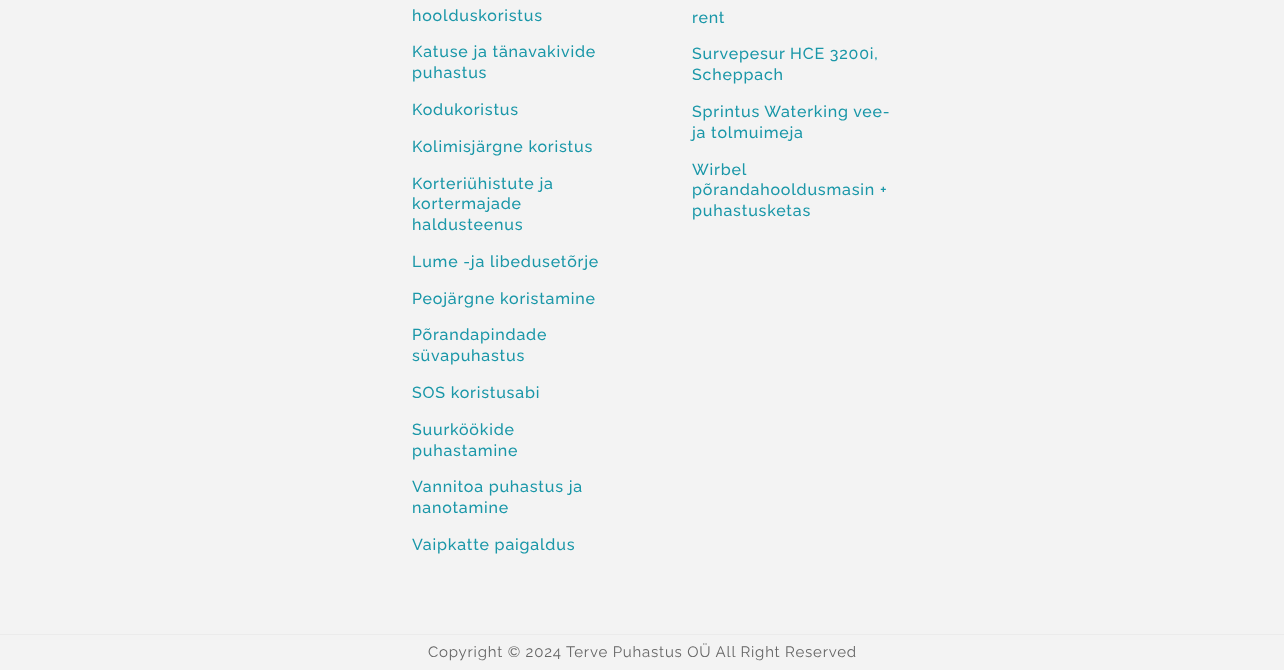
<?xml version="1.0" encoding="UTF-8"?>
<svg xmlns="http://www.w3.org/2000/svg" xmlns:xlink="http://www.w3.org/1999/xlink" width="1284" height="670">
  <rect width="100%" height="100%" fill="#f3f3f3" />
  <rect y="634" width="1284" height="1" fill="#ebebeb" />
  <text x="412" y="21" style="font-family: Raleway; font-size: 16px; font-weight: 500; letter-spacing: 0.8px; fill: #1a97a8">hoolduskoristus</text>
  <text x="412" y="57" style="font-family: Raleway; font-size: 16px; font-weight: 500; letter-spacing: 0.8px; fill: #1a97a8">Katuse ja tänavakivide</text>
  <text x="412" y="78" style="font-family: Raleway; font-size: 16px; font-weight: 500; letter-spacing: 0.8px; fill: #1a97a8">puhastus</text>
  <text x="412" y="115" style="font-family: Raleway; font-size: 16px; font-weight: 500; letter-spacing: 0.8px; fill: #1a97a8">Kodukoristus</text>
  <text x="412" y="152" style="font-family: Raleway; font-size: 16px; font-weight: 500; letter-spacing: 0.8px; fill: #1a97a8">Kolimisjärgne koristus</text>
  <text x="412" y="189" style="font-family: Raleway; font-size: 16px; font-weight: 500; letter-spacing: 0.8px; fill: #1a97a8">Korteriühistute ja</text>
  <text x="412" y="209" style="font-family: Raleway; font-size: 16px; font-weight: 500; letter-spacing: 0.8px; fill: #1a97a8">kortermajade</text>
  <text x="412" y="230" style="font-family: Raleway; font-size: 16px; font-weight: 500; letter-spacing: 0.8px; fill: #1a97a8">haldusteenus</text>
  <text x="412" y="267" style="font-family: Raleway; font-size: 16px; font-weight: 500; letter-spacing: 0.8px; fill: #1a97a8">Lume -ja libedusetõrje</text>
  <text x="412" y="304" style="font-family: Raleway; font-size: 16px; font-weight: 500; letter-spacing: 0.8px; fill: #1a97a8">Peojärgne koristamine</text>
  <text x="412" y="340" style="font-family: Raleway; font-size: 16px; font-weight: 500; letter-spacing: 0.8px; fill: #1a97a8">Põrandapindade</text>
  <text x="412" y="361" style="font-family: Raleway; font-size: 16px; font-weight: 500; letter-spacing: 0.8px; fill: #1a97a8">süvapuhastus</text>
  <text x="412" y="398" style="font-family: Raleway; font-size: 16px; font-weight: 500; letter-spacing: 0.8px; fill: #1a97a8">SOS koristusabi</text>
  <text x="412" y="435" style="font-family: Raleway; font-size: 16px; font-weight: 500; letter-spacing: 0.8px; fill: #1a97a8">Suurköökide</text>
  <text x="412" y="456" style="font-family: Raleway; font-size: 16px; font-weight: 500; letter-spacing: 0.8px; fill: #1a97a8">puhastamine</text>
  <text x="412" y="492" style="font-family: Raleway; font-size: 16px; font-weight: 500; letter-spacing: 0.8px; fill: #1a97a8">Vannitoa puhastus ja</text>
  <text x="412" y="513" style="font-family: Raleway; font-size: 16px; font-weight: 500; letter-spacing: 0.8px; fill: #1a97a8">nanotamine</text>
  <text x="412" y="550" style="font-family: Raleway; font-size: 16px; font-weight: 500; letter-spacing: 0.8px; fill: #1a97a8">Vaipkatte paigaldus</text>
  <text x="692" y="23" style="font-family: Raleway; font-size: 16px; font-weight: 500; letter-spacing: 0.8px; fill: #1a97a8">rent</text>
  <text x="692" y="59" style="font-family: Raleway; font-size: 16px; font-weight: 500; letter-spacing: 0.8px; fill: #1a97a8">Survepesur HCE 3200i,</text>
  <text x="692" y="80" style="font-family: Raleway; font-size: 16px; font-weight: 500; letter-spacing: 0.8px; fill: #1a97a8">Scheppach</text>
  <text x="692" y="117" style="font-family: Raleway; font-size: 16px; font-weight: 500; letter-spacing: 0.8px; fill: #1a97a8">Sprintus Waterking vee-</text>
  <text x="692" y="138" style="font-family: Raleway; font-size: 16px; font-weight: 500; letter-spacing: 0.8px; fill: #1a97a8">ja tolmuimeja</text>
  <text x="692" y="175" style="font-family: Raleway; font-size: 16px; font-weight: 500; letter-spacing: 0.8px; fill: #1a97a8">Wirbel</text>
  <text x="692" y="195" style="font-family: Raleway; font-size: 16px; font-weight: 500; letter-spacing: 0.8px; fill: #1a97a8">põrandahooldusmasin +</text>
  <text x="692" y="216" style="font-family: Raleway; font-size: 16px; font-weight: 500; letter-spacing: 0.8px; fill: #1a97a8">puhastusketas</text>
  <text x="428" y="657" style="font-family: Raleway; font-size: 15px; letter-spacing: 0.8px; fill: #666666">Copyright © 2024 Terve Puhastus OÜ All Right Reserved</text>
</svg>
